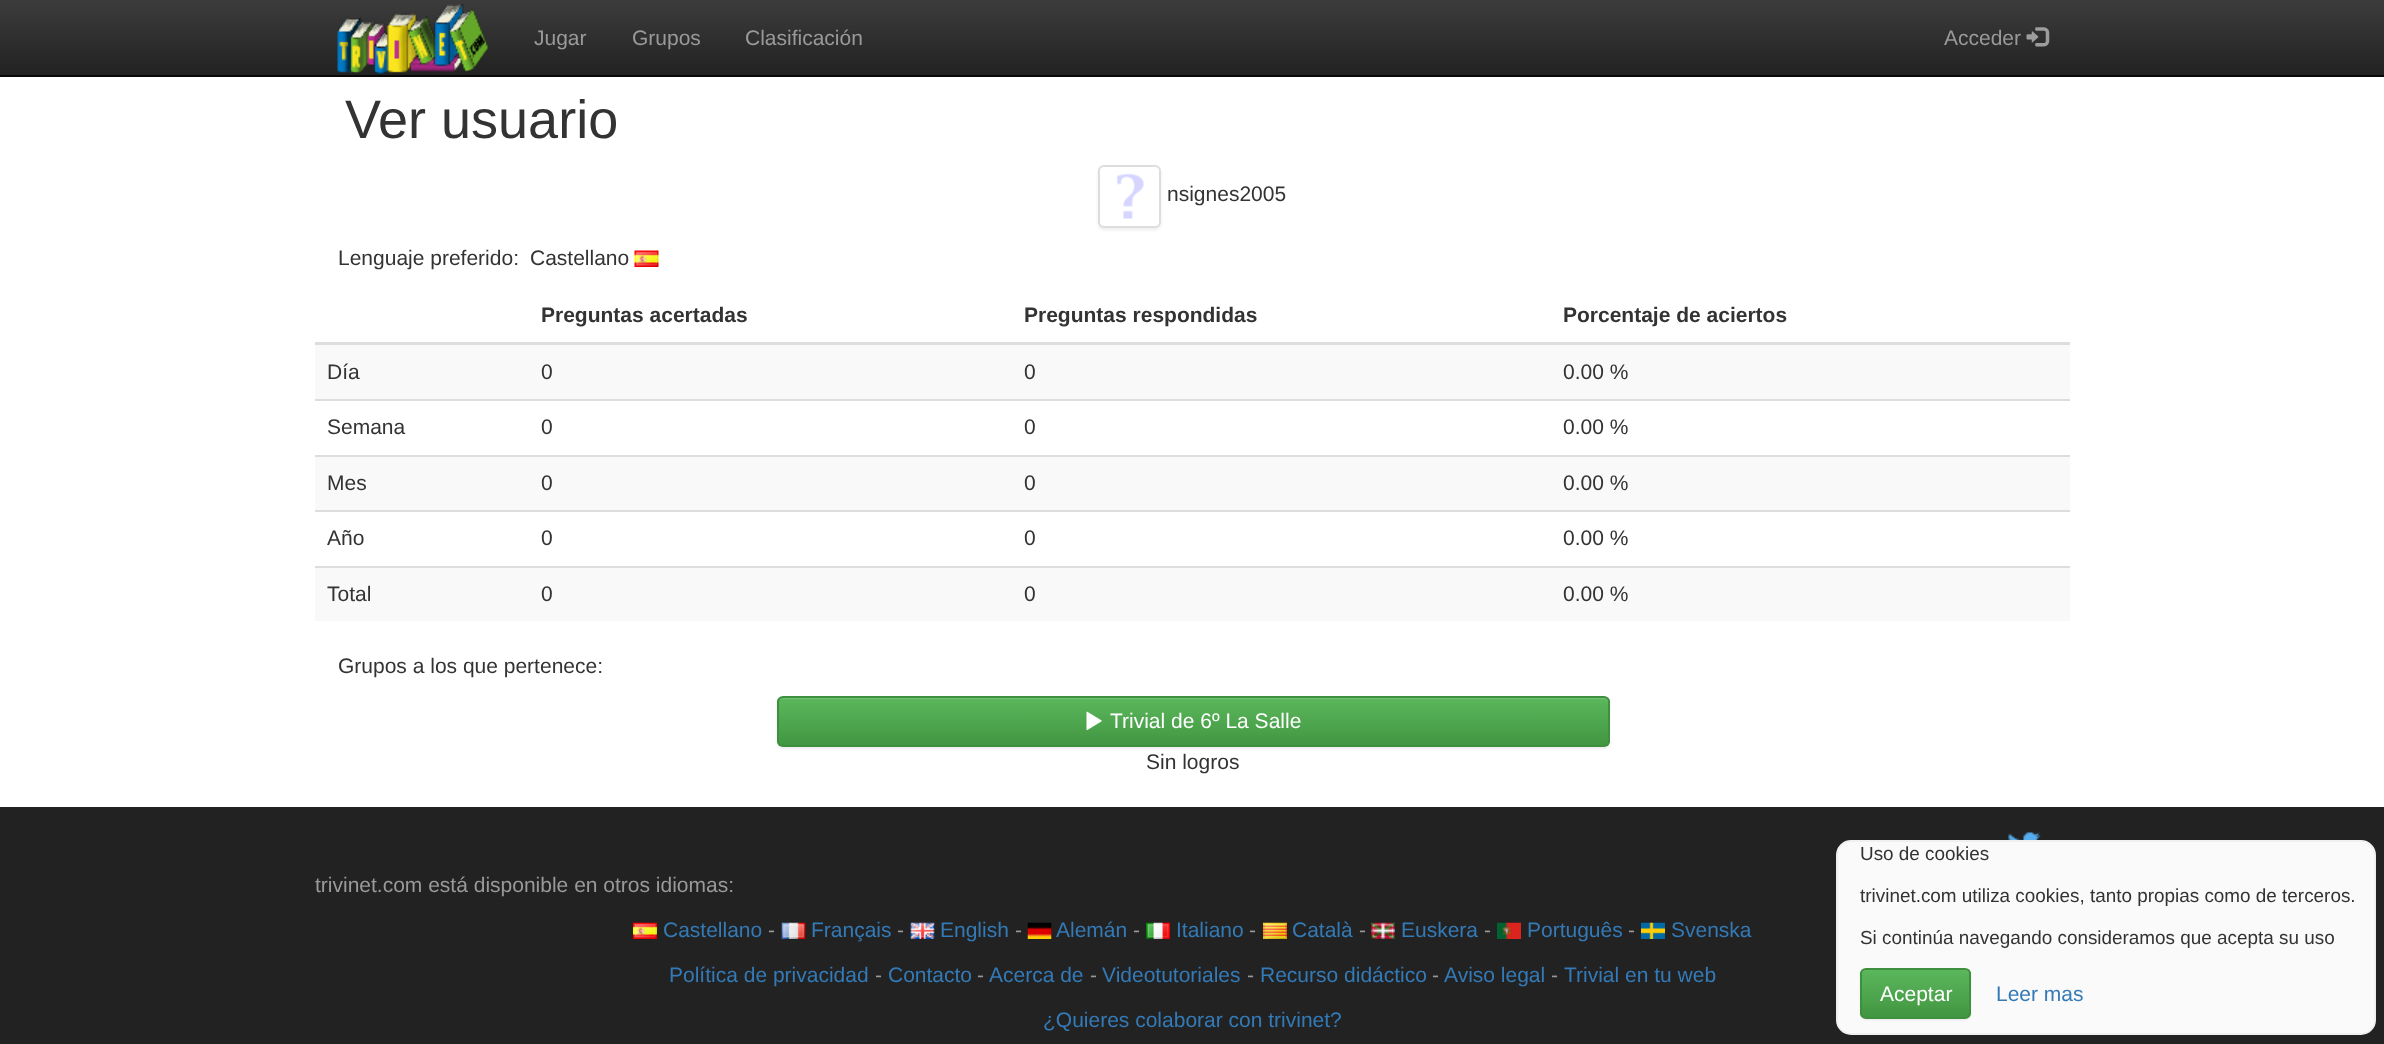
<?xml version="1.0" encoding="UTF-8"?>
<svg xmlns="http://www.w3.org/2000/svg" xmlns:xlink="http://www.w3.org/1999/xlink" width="2384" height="1044">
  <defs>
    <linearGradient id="g1" gradientUnits="userSpaceOnUse" x1="1193" y1="0" x2="1193" y2="75"><stop offset="0" stop-color="#3c3c3c" /><stop offset="1" stop-color="#222222" /></linearGradient>
    <clipPath id="clip1"><rect x="777" y="696" width="833" height="51" rx="6" /></clipPath>
    <linearGradient id="g2" gradientUnits="userSpaceOnUse" x1="1193" y1="697" x2="1193" y2="746"><stop offset="0" stop-color="#5cb85c" /><stop offset="1" stop-color="#419641" /></linearGradient>
    <clipPath id="clip2"><rect x="1860" y="968" width="111" height="51" rx="6" /></clipPath>
    <linearGradient id="g3" gradientUnits="userSpaceOnUse" x1="1916" y1="969" x2="1916" y2="1017"><stop offset="0" stop-color="#5cb85c" /><stop offset="1" stop-color="#419641" /></linearGradient>
  </defs>
  <rect width="100%" height="100%" fill="#ffffff" />
  <rect width="2384" height="75" fill="url(#g1)" />
  <rect y="75" width="2384" height="2" fill="#080808" />
  <image x="337" y="3" width="152" height="72" xlink:href="image1.png" />
  <image x="2026" y="27" width="24" height="20" xlink:href="image2.png" />
  <rect x="1098" y="167" width="63" height="63" rx="6" fill="#000000" fill-opacity="0.07" filter="blur(1.5px)" />
  <rect x="1099" y="166" width="61" height="61" rx="5" fill="#ffffff" stroke="#dddddd" stroke-width="2" />
  <image x="1116" y="173" width="28" height="46" xlink:href="image3.png" />
  <image x="634" y="250" width="25" height="17" xlink:href="image4.png" />
  <rect x="315" y="342" width="1755" height="3" fill="#dddddd" />
  <rect x="315" y="345" width="1755" height="54" fill="#f9f9f9" />
  <rect x="315" y="399" width="1755" height="2" fill="#dddddd" />
  <rect x="315" y="457" width="1755" height="53" fill="#f9f9f9" />
  <rect x="315" y="455" width="1755" height="2" fill="#dddddd" />
  <rect x="315" y="510" width="1755" height="2" fill="#dddddd" />
  <rect x="315" y="568" width="1755" height="53" fill="#f9f9f9" />
  <rect x="315" y="566" width="1755" height="2" fill="#dddddd" />
  <rect x="777" y="698" width="833" height="51" rx="6" fill="#000000" fill-opacity="0.07" filter="blur(1px)" />
  <g clip-path="url(#clip1)">
    <rect x="777" y="698" width="833" height="48" fill="url(#g2)" />
  </g>
  <path d="M 783 699 h 821 c 2 0 4 2 4 5 v -1 c 0 -3 -2 -5 -5 -5 h -819 c -2 0 -3 1 -4 2 z" fill="#74c274" />
  <rect x="778" y="697" width="831" height="49" rx="5" fill="none" stroke="#3e8f3e" stroke-width="2" />
  <image x="1086" y="711" width="16" height="20" xlink:href="image5.png" />
  <rect y="807" width="2384" height="237" fill="#222222" />
  <image x="2008" y="831" width="33" height="9" xlink:href="image6.png" />
  <image x="633" y="922" width="24" height="17" xlink:href="image7.png" />
  <image x="781" y="922" width="25" height="17" xlink:href="image8.png" />
  <image x="910" y="922" width="25" height="17" xlink:href="image9.png" />
  <image x="1027" y="922" width="25" height="17" xlink:href="image10.png" />
  <image x="1146" y="922" width="24" height="17" xlink:href="image11.png" />
  <image x="1263" y="922" width="24" height="17" xlink:href="image12.png" />
  <image x="1371" y="922" width="24" height="17" xlink:href="image13.png" />
  <image x="1497" y="922" width="24" height="17" xlink:href="image14.png" />
  <image x="1641" y="922" width="24" height="17" xlink:href="image15.png" />
  <rect x="1837" y="841" width="538" height="193" rx="14" fill="#fafafa" stroke="#f0f0f0" stroke-width="2" />
  <rect x="1860" y="969" width="111" height="51" rx="6" fill="#000000" fill-opacity="0.07" filter="blur(1px)" />
  <g clip-path="url(#clip2)">
    <rect x="1860" y="969" width="111" height="48" fill="url(#g3)" />
  </g>
  <path d="M 1866 970 h 99 c 2 0 5 3 5 5 c 0 -10 -16 -6 -21 -6 h -66 c -5 0 -21 -4 -21 6 c 0 -2 2 -5 4 -5 z" fill="#74c374" />
  <rect x="1861" y="969" width="109" height="49" rx="5" fill="none" stroke="#3e8f3e" stroke-width="2" />
  <text x="534" y="45" style="font-family: Liberation Sans; font-size: 21px; fill: #999999">Jugar</text>
  <text x="632" y="45" style="font-family: Liberation Sans; font-size: 21px; fill: #999999">Grupos</text>
  <text x="745" y="45" style="font-family: Liberation Sans; font-size: 21px; fill: #999999">Clasificación</text>
  <text x="1944" y="45" style="font-family: Liberation Sans; font-size: 21px; fill: #999999">Acceder</text>
  <text x="345" y="138" style="font-family: Liberation Sans; font-size: 54px; fill: #333333">Ver usuario</text>
  <text x="1167" y="201" style="font-family: Liberation Sans; font-size: 21px; fill: #333333">nsignes2005</text>
  <text x="338" y="265" style="font-family: Liberation Sans; font-size: 21px; fill: #333333">Lenguaje preferido:</text>
  <text x="530" y="265" style="font-family: Liberation Sans; font-size: 21px; fill: #333333">Castellano</text>
  <text x="541" y="322" style="font-family: Liberation Sans; font-size: 21px; font-weight: bold; fill: #333333">Preguntas acertadas</text>
  <text x="1024" y="322" style="font-family: Liberation Sans; font-size: 21px; font-weight: bold; fill: #333333">Preguntas respondidas</text>
  <text x="1563" y="322" style="font-family: Liberation Sans; font-size: 21px; font-weight: bold; fill: #333333">Porcentaje de aciertos</text>
  <text x="327" y="379" style="font-family: Liberation Sans; font-size: 21px; fill: #333333">Día</text>
  <text x="541" y="379" style="font-family: Liberation Sans; font-size: 21px; fill: #333333">0</text>
  <text x="1024" y="379" style="font-family: Liberation Sans; font-size: 21px; fill: #333333">0</text>
  <text x="1563" y="379" style="font-family: Liberation Sans; font-size: 21px; fill: #333333">0.00 %</text>
  <text x="327" y="434" style="font-family: Liberation Sans; font-size: 21px; fill: #333333">Semana</text>
  <text x="541" y="434" style="font-family: Liberation Sans; font-size: 21px; fill: #333333">0</text>
  <text x="1024" y="434" style="font-family: Liberation Sans; font-size: 21px; fill: #333333">0</text>
  <text x="1563" y="434" style="font-family: Liberation Sans; font-size: 21px; fill: #333333">0.00 %</text>
  <text x="327" y="490" style="font-family: Liberation Sans; font-size: 21px; fill: #333333">Mes</text>
  <text x="541" y="490" style="font-family: Liberation Sans; font-size: 21px; fill: #333333">0</text>
  <text x="1024" y="490" style="font-family: Liberation Sans; font-size: 21px; fill: #333333">0</text>
  <text x="1563" y="490" style="font-family: Liberation Sans; font-size: 21px; fill: #333333">0.00 %</text>
  <text x="327" y="545" style="font-family: Liberation Sans; font-size: 21px; fill: #333333">Año</text>
  <text x="541" y="545" style="font-family: Liberation Sans; font-size: 21px; fill: #333333">0</text>
  <text x="1024" y="545" style="font-family: Liberation Sans; font-size: 21px; fill: #333333">0</text>
  <text x="1563" y="545" style="font-family: Liberation Sans; font-size: 21px; fill: #333333">0.00 %</text>
  <text x="327" y="601" style="font-family: Liberation Sans; font-size: 21px; fill: #333333">Total</text>
  <text x="541" y="601" style="font-family: Liberation Sans; font-size: 21px; fill: #333333">0</text>
  <text x="1024" y="601" style="font-family: Liberation Sans; font-size: 21px; fill: #333333">0</text>
  <text x="1563" y="601" style="font-family: Liberation Sans; font-size: 21px; fill: #333333">0.00 %</text>
  <text x="338" y="673" style="font-family: Liberation Sans; font-size: 21px; fill: #333333">Grupos a los que pertenece:</text>
  <text x="1110" y="728" style="font-family: Liberation Sans; font-size: 21px; fill: #ffffff">Trivial de 6º La Salle</text>
  <text x="1146" y="769" style="font-family: Liberation Sans; font-size: 21px; fill: #333333">Sin logros</text>
  <text x="315" y="892" style="font-family: Liberation Sans; font-size: 21px; fill: #999999">trivinet.com está disponible en otros idiomas:</text>
  <text x="663" y="937" style="font-family: Liberation Sans; font-size: 21px; fill: #337ab7">Castellano</text>
  <text x="768" y="937" style="font-family: Liberation Sans; font-size: 21px; fill: #999999">-</text>
  <text x="811" y="937" style="font-family: Liberation Sans; font-size: 21px; fill: #337ab7">Français</text>
  <text x="897" y="937" style="font-family: Liberation Sans; font-size: 21px; fill: #999999">-</text>
  <text x="940" y="937" style="font-family: Liberation Sans; font-size: 21px; fill: #337ab7">English</text>
  <text x="1015" y="937" style="font-family: Liberation Sans; font-size: 21px; fill: #999999">-</text>
  <text x="1056" y="937" style="font-family: Liberation Sans; font-size: 21px; fill: #337ab7">Alemán</text>
  <text x="1133" y="937" style="font-family: Liberation Sans; font-size: 21px; fill: #999999">-</text>
  <text x="1176" y="937" style="font-family: Liberation Sans; font-size: 21px; fill: #337ab7">Italiano</text>
  <text x="1249" y="937" style="font-family: Liberation Sans; font-size: 21px; fill: #999999">-</text>
  <text x="1292" y="937" style="font-family: Liberation Sans; font-size: 21px; fill: #337ab7">Català</text>
  <text x="1359" y="937" style="font-family: Liberation Sans; font-size: 21px; fill: #999999">-</text>
  <text x="1401" y="937" style="font-family: Liberation Sans; font-size: 21px; fill: #337ab7">Euskera</text>
  <text x="1484" y="937" style="font-family: Liberation Sans; font-size: 21px; fill: #999999">-</text>
  <text x="1527" y="937" style="font-family: Liberation Sans; font-size: 21px; fill: #337ab7">Português</text>
  <text x="1628" y="937" style="font-family: Liberation Sans; font-size: 21px; fill: #999999">-</text>
  <text x="1671" y="937" style="font-family: Liberation Sans; font-size: 21px; fill: #337ab7">Svenska</text>
  <text x="669" y="982" style="font-family: Liberation Sans; font-size: 21px; fill: #337ab7">Política de privacidad</text>
  <text x="875" y="982" style="font-family: Liberation Sans; font-size: 21px; fill: #999999">-</text>
  <text x="888" y="982" style="font-family: Liberation Sans; font-size: 21px; fill: #337ab7">Contacto</text>
  <text x="977" y="982" style="font-family: Liberation Sans; font-size: 21px; fill: #999999">-</text>
  <text x="989" y="982" style="font-family: Liberation Sans; font-size: 21px; fill: #337ab7">Acerca de</text>
  <text x="1090" y="982" style="font-family: Liberation Sans; font-size: 21px; fill: #999999">-</text>
  <text x="1102" y="982" style="font-family: Liberation Sans; font-size: 21px; fill: #337ab7">Videotutoriales</text>
  <text x="1247" y="982" style="font-family: Liberation Sans; font-size: 21px; fill: #999999">-</text>
  <text x="1260" y="982" style="font-family: Liberation Sans; font-size: 21px; fill: #337ab7">Recurso didáctico</text>
  <text x="1432" y="982" style="font-family: Liberation Sans; font-size: 21px; fill: #999999">-</text>
  <text x="1444" y="982" style="font-family: Liberation Sans; font-size: 21px; fill: #337ab7">Aviso legal</text>
  <text x="1551" y="982" style="font-family: Liberation Sans; font-size: 21px; fill: #999999">-</text>
  <text x="1564" y="982" style="font-family: Liberation Sans; font-size: 21px; fill: #337ab7">Trivial en tu web</text>
  <text x="1043" y="1027" style="font-family: Liberation Sans; font-size: 21px; fill: #337ab7">¿Quieres colaborar con trivinet?</text>
  <text x="1860" y="860" style="font-family: Liberation Sans; font-size: 18.9px; fill: #333333">Uso de cookies</text>
  <text x="1860" y="902" style="font-family: Liberation Sans; font-size: 18.9px; fill: #333333">trivinet.com utiliza cookies, tanto propias como de terceros.</text>
  <text x="1860" y="944" style="font-family: Liberation Sans; font-size: 18.9px; fill: #333333">Si continúa navegando consideramos que acepta su uso</text>
  <text x="1880" y="1001" style="font-family: Liberation Sans; font-size: 21px; fill: #ffffff">Aceptar</text>
  <text x="1996" y="1001" style="font-family: Liberation Sans; font-size: 21px; fill: #337ab7">Leer mas</text>
</svg>
